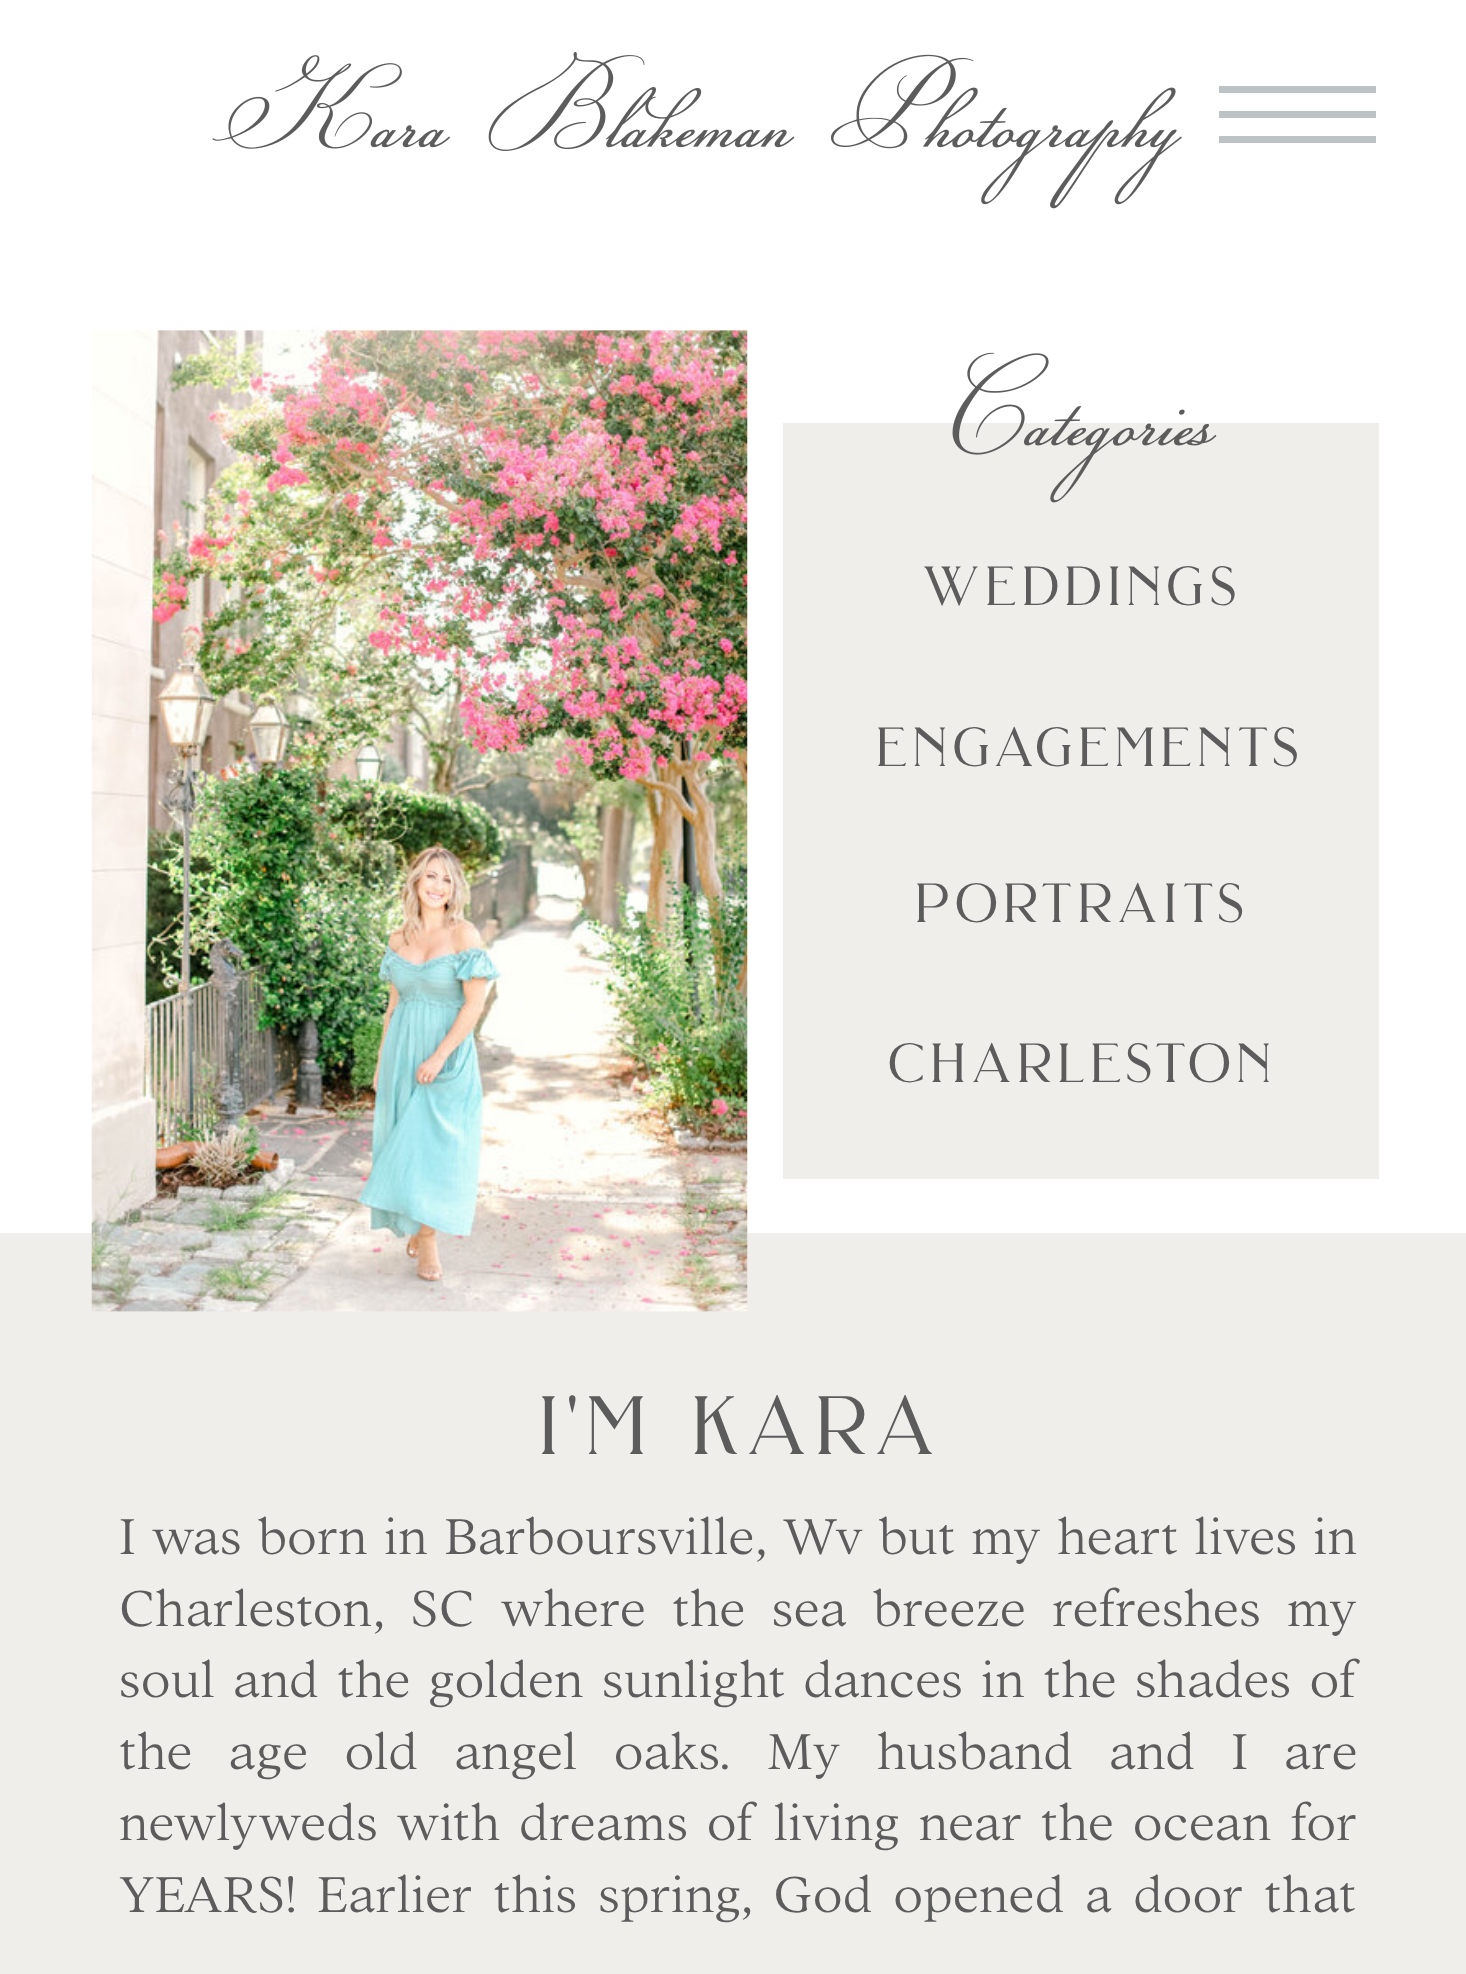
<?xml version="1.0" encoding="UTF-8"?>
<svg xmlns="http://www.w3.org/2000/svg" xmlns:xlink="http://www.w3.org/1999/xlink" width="1466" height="1974">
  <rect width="100%" height="100%" fill="#ffffff" />
  <image x="212" y="52" width="970" height="157" xlink:href="image1.png" />
  <path d="M 1219 136 h 157 v 7 h -157 z m 0 -25 h 157 v 7 h -157 z m 0 -25 h 157 v 7 h -157 z" fill="#bdc3c5" />
  <rect y="1233" width="1466" height="741" fill="#f0eeeb" />
  <image x="91" y="330" width="657" height="982" xlink:href="image2.png" />
  <rect x="783" y="423" width="596" height="756" fill="#f0eeeb" />
  <image x="952" y="352" width="265" height="151" xlink:href="image3.png" />
  <text x="922" y="605" style="font-family: 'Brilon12'; font-size: 55px; letter-spacing: 5.5px; fill: #5c5c5c">weddings</text>
  <text x="876" y="766" style="font-family: 'Brilon12'; font-size: 55px; letter-spacing: 5.5px; fill: #5c5c5c">engagements</text>
  <text x="915" y="922" style="font-family: 'Brilon12'; font-size: 55px; letter-spacing: 5.5px; fill: #5c5c5c">portraits</text>
  <text x="888" y="1082" style="font-family: 'Brilon12'; font-size: 55px; letter-spacing: 5.5px; fill: #5c5c5c">charleston</text>
  <text x="538" y="1454" style="font-family: 'Brilon12'; font-size: 82.5px; letter-spacing: 8.25px; fill: #5c5c5c">i'm kara</text>
  <text x="119" y="1554" word-spacing="3.75" style="font-family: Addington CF; font-size: 55px; font-weight: 100; fill: #5c5c5c">I was born in Barboursville, Wv but my heart lives in</text>
  <text x="119" y="1626" word-spacing="13.75" style="font-family: Addington CF; font-size: 55px; font-weight: 100; fill: #5c5c5c">Charleston, SC where the sea breeze refreshes my</text>
  <text x="119" y="1697" word-spacing="5.75" style="font-family: Addington CF; font-size: 55px; font-weight: 100; fill: #5c5c5c">soul and the golden sunlight dances in the shades of</text>
  <text x="119" y="1769" word-spacing="24" style="font-family: Addington CF; font-size: 55px; font-weight: 100; fill: #5c5c5c">the age old angel oaks. My husband and I are</text>
  <text x="119" y="1840" word-spacing="6.25" style="font-family: Addington CF; font-size: 55px; font-weight: 100; fill: #5c5c5c">newlyweds with dreams of living near the ocean for</text>
  <text x="119" y="1912" word-spacing="8.5" style="font-family: Addington CF; font-size: 55px; font-weight: 100; fill: #5c5c5c">YEARS! Earlier this spring, God opened a door that</text>
</svg>
